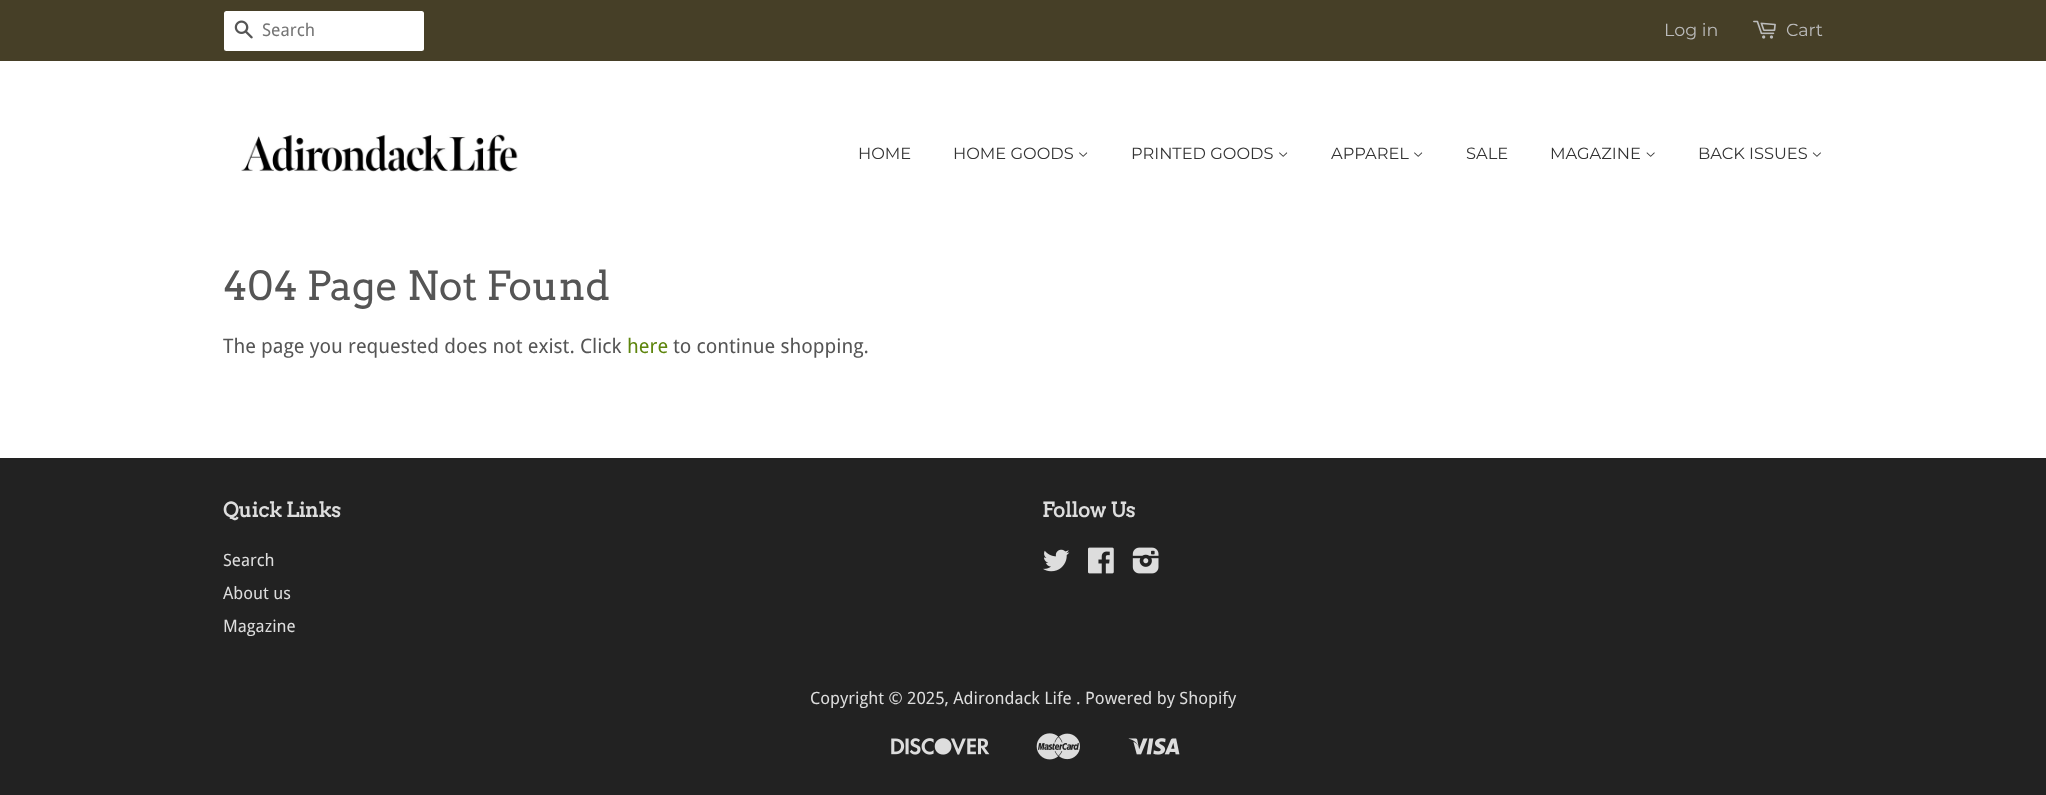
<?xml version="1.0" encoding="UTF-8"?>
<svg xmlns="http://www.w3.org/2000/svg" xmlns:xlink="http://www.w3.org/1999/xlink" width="2046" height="795">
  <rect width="100%" height="100%" fill="#ffffff" />
  <rect width="2046" height="61" fill="#463f27" />
  <rect x="224" y="11" width="200" height="40" rx="2.5" fill="#ffffff" />
  <image x="234" y="20" width="19" height="19" xlink:href="image1.png" />
  <image x="1753" y="20" width="23" height="19" xlink:href="image2.png" />
  <image x="241" y="134" width="277" height="38" xlink:href="image3.png" />
  <image x="1079" y="152" width="9" height="5" xlink:href="image4.png" />
  <image x="1279" y="152" width="9" height="5" xlink:href="image4.png" />
  <image x="1414" y="152" width="9" height="5" xlink:href="image4.png" />
  <image x="1646" y="152" width="9" height="5" xlink:href="image5.png" />
  <image x="1812" y="152" width="9" height="5" xlink:href="image6.png" />
  <rect y="458" width="2046" height="337" fill="#222222" />
  <image x="1043" y="549" width="27" height="23" xlink:href="image7.png" />
  <image x="1088" y="547" width="26" height="27" xlink:href="image8.png" />
  <image x="1132" y="547" width="27" height="27" xlink:href="image9.png" />
  <image x="891" y="738" width="99" height="17" xlink:href="image10.png" />
  <image x="1036" y="733" width="44" height="27" xlink:href="image11.png" />
  <image x="1128" y="738" width="52" height="17" xlink:href="image12.png" />
  <text x="262" y="36" style="font-family: Droid Sans; font-size: 17.5px; fill: #757575">Search</text>
  <text x="1664" y="36" style="font-family: Montserrat; font-size: 17.5px; font-weight: 100; fill: #bbbbbb">Log in</text>
  <text x="1786" y="36" style="font-family: Montserrat; font-size: 17.5px; font-weight: 100; fill: #bbbbbb">Cart</text>
  <text x="858" y="159" style="font-family: Montserrat; font-size: 16.25px; font-weight: 100; fill: #333333">HOME</text>
  <text x="953" y="159" style="font-family: Montserrat; font-size: 16.25px; font-weight: 100; fill: #333333">HOME GOODS</text>
  <text x="1131" y="159" style="font-family: Montserrat; font-size: 16.25px; font-weight: 100; fill: #333333">PRINTED GOODS</text>
  <text x="1331" y="159" style="font-family: Montserrat; font-size: 16.25px; font-weight: 100; fill: #333333">APPAREL</text>
  <text x="1466" y="159" style="font-family: Montserrat; font-size: 16.25px; font-weight: 100; fill: #333333">SALE</text>
  <text x="1550" y="159" style="font-family: Montserrat; font-size: 16.25px; font-weight: 100; fill: #333333">MAGAZINE</text>
  <text x="1698" y="159" style="font-family: Montserrat; font-size: 16.25px; font-weight: 100; fill: #333333">BACK ISSUES</text>
  <text x="223" y="300" style="font-family: Arvo; font-size: 40px; fill: #555555">404 Page Not Found</text>
  <text x="223" y="353" style="font-family: Droid Sans; font-size: 20px; fill: #555555">The page you requested does not exist. Click</text>
  <text x="627" y="353" style="font-family: Droid Sans; font-size: 20px; fill: #5e850d">here</text>
  <text x="673" y="353" style="font-family: Droid Sans; font-size: 20px; fill: #555555">to continue shopping.</text>
  <text x="223" y="517" style="font-family: Arvo; font-size: 20px; font-weight: bold; fill: #dddddd">Quick Links</text>
  <text x="223" y="566" style="font-family: Droid Sans; font-size: 17px; fill: #dddddd">Search</text>
  <text x="223" y="599" style="font-family: Droid Sans; font-size: 17px; fill: #dddddd">About us</text>
  <text x="223" y="632" style="font-family: Droid Sans; font-size: 17px; fill: #dddddd">Magazine</text>
  <text x="1042" y="517" style="font-family: Arvo; font-size: 20px; font-weight: bold; fill: #dddddd">Follow Us</text>
  <text x="810" y="704" style="font-family: Droid Sans; font-size: 17px; fill: #dddddd">Copyright © 2025, Adirondack Life . Powered by Shopify</text>
</svg>
